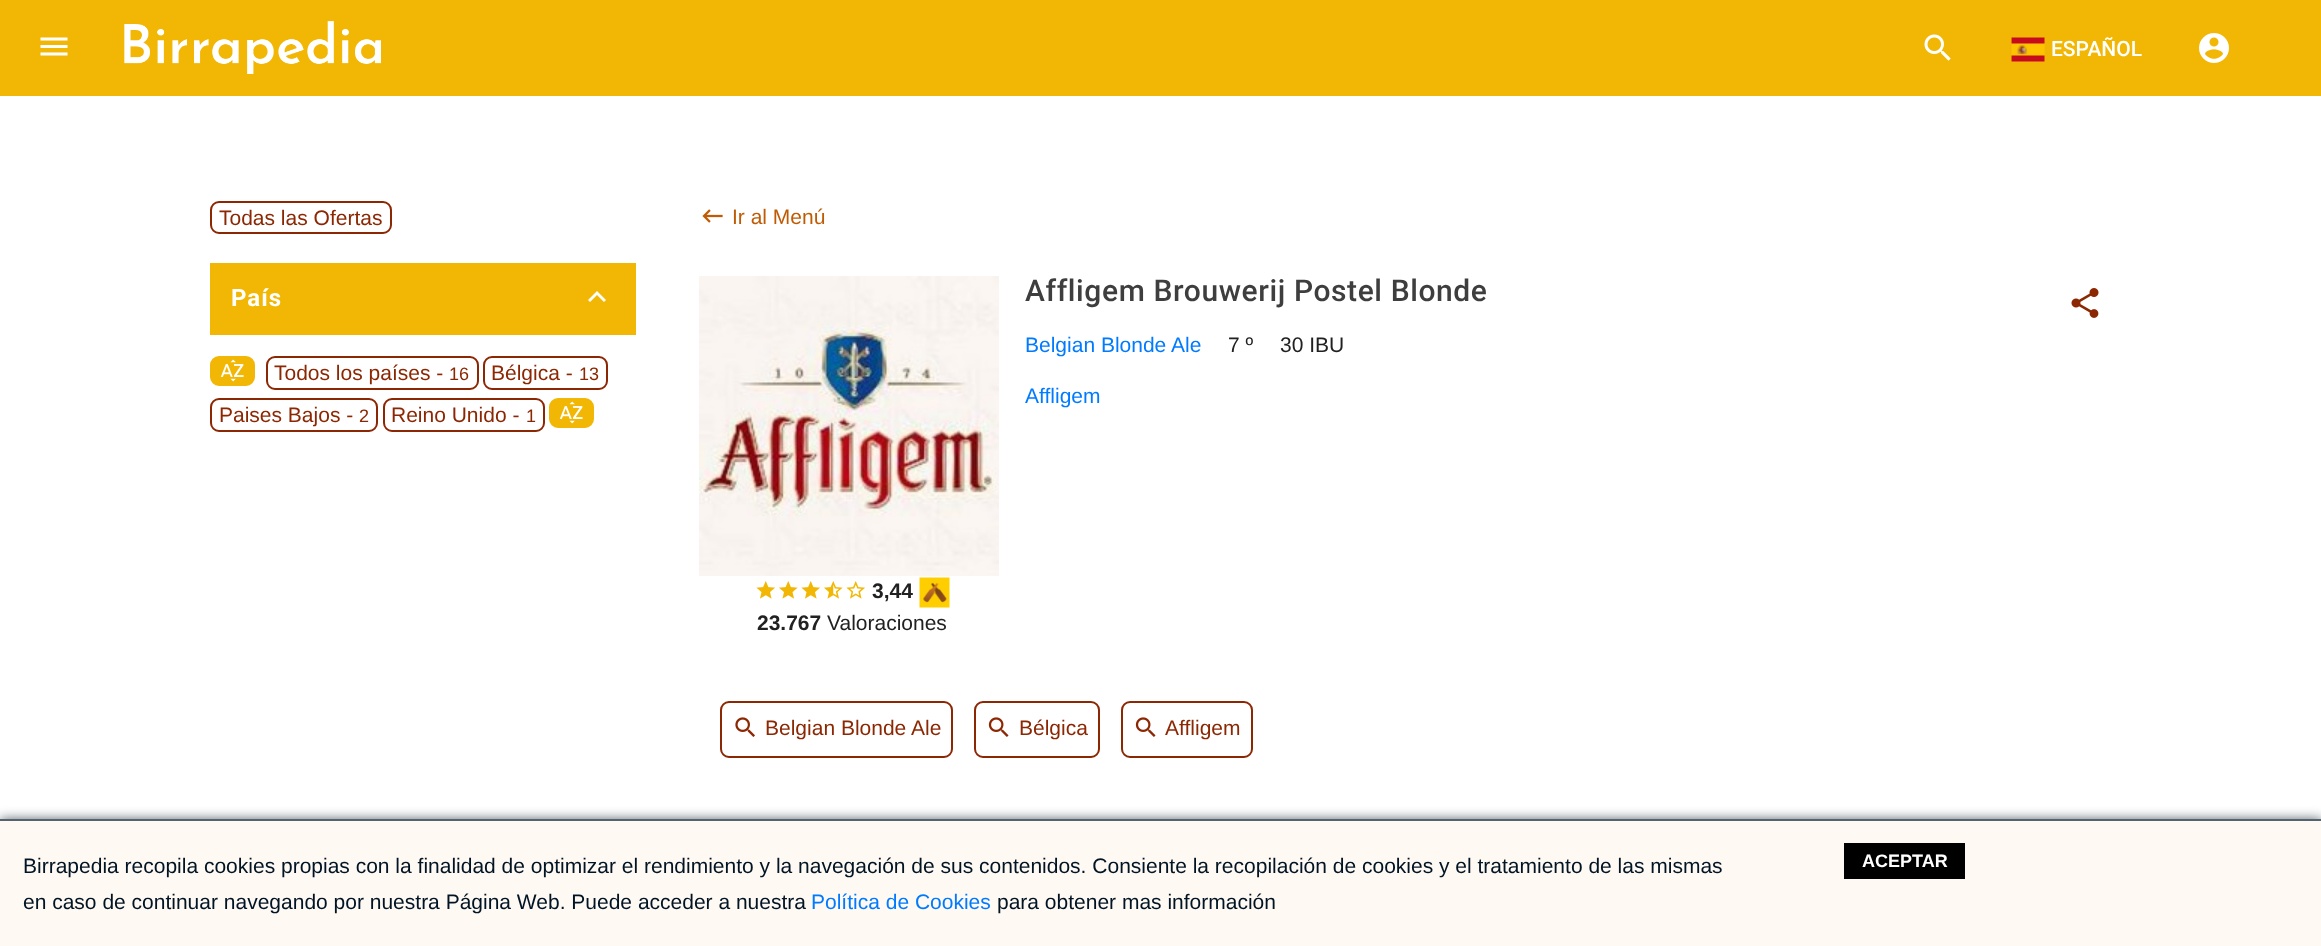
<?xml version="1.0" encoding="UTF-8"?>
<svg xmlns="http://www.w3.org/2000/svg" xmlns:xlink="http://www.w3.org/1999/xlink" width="2321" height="946">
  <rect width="100%" height="100%" fill="#ffffff" />
  <rect width="2321" height="96" fill="#f2b705" />
  <image x="40" y="37" width="28" height="19" xlink:href="image1.png" />
  <image x="124" y="21" width="257" height="53" xlink:href="image2.png" />
  <image x="1924" y="34" width="27" height="27" xlink:href="image3.png" />
  <image x="2011" y="37" width="34" height="25" xlink:href="image4.png" />
  <image x="2199" y="33" width="30" height="30" xlink:href="image5.png" />
  <rect x="211" y="202" width="180" height="31" rx="8" fill="none" stroke="#8c2703" stroke-width="2" />
  <rect x="210" y="263" width="426" height="72" fill="#f2b705" />
  <path d="M 590 302 l -2 -2 l 9 -9 l 9 9 l -2 2 l -7 -7 z" fill="#ffffff" />
  <rect x="211" y="357" width="43" height="28" rx="8" fill="#f2b705" stroke="#f2b705" stroke-width="2" />
  <image x="220" y="359" width="24" height="23" xlink:href="image6.png" />
  <rect x="267" y="357" width="211" height="32" rx="8" fill="none" stroke="#8c2703" stroke-width="2" />
  <rect x="484" y="357" width="123" height="32" rx="8" fill="none" stroke="#8c2703" stroke-width="2" />
  <rect x="211" y="399" width="166" height="32" rx="8" fill="none" stroke="#8c2703" stroke-width="2" />
  <rect x="384" y="399" width="160" height="32" rx="8" fill="none" stroke="#8c2703" stroke-width="2" />
  <rect x="550" y="399" width="43" height="28" rx="8" fill="#f2b705" stroke="#f2b705" stroke-width="2" />
  <image x="559" y="401" width="24" height="23" xlink:href="image6.png" />
  <image x="702" y="209" width="21" height="14" xlink:href="image7.png" />
  <image x="2071" y="288" width="28" height="30" xlink:href="image8.png" />
  <image x="699" y="276" width="300" height="300" xlink:href="image9.png" />
  <image x="756" y="581" width="19" height="18" xlink:href="image10.png" />
  <image x="779" y="581" width="19" height="18" xlink:href="image11.png" />
  <image x="801" y="581" width="19" height="18" xlink:href="image10.png" />
  <image x="824" y="581" width="19" height="18" xlink:href="image12.png" />
  <image x="846" y="581" width="19" height="18" xlink:href="image13.png" />
  <image x="919" y="577" width="31" height="31" xlink:href="image14.png" />
  <rect x="721" y="702" width="231" height="55" rx="8" fill="none" stroke="#8c2703" stroke-width="2" />
  <image x="735" y="717" width="20" height="20" xlink:href="image15.png" />
  <rect x="975" y="702" width="124" height="55" rx="8" fill="none" stroke="#8c2703" stroke-width="2" />
  <image x="988" y="717" width="21" height="20" xlink:href="image16.png" />
  <rect x="1122" y="702" width="130" height="55" rx="8" fill="none" stroke="#8c2703" stroke-width="2" />
  <image x="1135" y="717" width="21" height="20" xlink:href="image16.png" />
  <rect y="819" width="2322" height="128" fill="#56636e" filter="blur(6px)" />
  <rect y="821" width="2321" height="125" fill="#fff9f4" />
  <rect y="819" width="2321" height="2" fill="#56636e" />
  <rect x="1844" y="843" width="121" height="36" fill="#000000" />
  <text x="2051" y="56" style="font-family: Roboto; font-size: 21px; font-weight: 500; fill: #ffffff">ESPAÑOL</text>
  <text x="219" y="225" style="font-family: Liberation Sans; font-size: 21px; fill: #8c2703">Todas las Ofertas</text>
  <text x="231" y="306" style="font-family: Roboto; font-size: 24px; font-weight: bold; letter-spacing: 1px; fill: #ffffff">País</text>
  <text x="274" y="380" style="font-family: Liberation Sans; font-size: 21px; fill: #8c2703">Todos los países -</text>
  <text x="449" y="380" style="font-family: Liberation Sans; font-size: 18px; fill: #8c2703">16</text>
  <text x="491" y="380" style="font-family: Liberation Sans; font-size: 21px; fill: #8c2703">Bélgica -</text>
  <text x="579" y="380" style="font-family: Liberation Sans; font-size: 18px; fill: #8c2703">13</text>
  <text x="219" y="422" style="font-family: Liberation Sans; font-size: 21px; fill: #8c2703">Paises Bajos -</text>
  <text x="359" y="422" style="font-family: Liberation Sans; font-size: 18px; fill: #8c2703">2</text>
  <text x="391" y="422" style="font-family: Liberation Sans; font-size: 21px; fill: #8c2703">Reino Unido -</text>
  <text x="526" y="422" style="font-family: Liberation Sans; font-size: 18px; fill: #8c2703">1</text>
  <text x="732" y="224" style="font-family: Liberation Sans; font-size: 21px; fill: #bf5b04">Ir al Menú</text>
  <text x="1025" y="301" style="font-family: Roboto; font-size: 30px; font-weight: 500; letter-spacing: 0.6px; fill: #3e3e3e">Affligem Brouwerij Postel Blonde</text>
  <text x="1025" y="352" style="font-family: Liberation Sans; font-size: 21px; fill: #007bff">Belgian Blonde Ale</text>
  <text x="1228" y="352" style="font-family: Liberation Sans; font-size: 21px; fill: #212121">7 º</text>
  <text x="1280" y="352" style="font-family: Liberation Sans; font-size: 21px; fill: #212121">30 IBU</text>
  <text x="1025" y="403" style="font-family: Liberation Sans; font-size: 21px; fill: #007bff">Affligem</text>
  <text x="872" y="598" style="font-family: Liberation Sans; font-size: 21px; font-weight: bold; fill: #212121">3,44</text>
  <text x="757" y="630" style="font-family: Liberation Sans; font-size: 21px; font-weight: bold; fill: #212121">23.767</text>
  <text x="827" y="630" style="font-family: Liberation Sans; font-size: 21px; fill: #212121">Valoraciones</text>
  <text x="765" y="735" style="font-family: Liberation Sans; font-size: 21px; fill: #8c2703">Belgian Blonde Ale</text>
  <text x="1019" y="735" style="font-family: Liberation Sans; font-size: 21px; fill: #8c2703">Bélgica</text>
  <text x="1165" y="735" style="font-family: Liberation Sans; font-size: 21px; fill: #8c2703">Affligem</text>
  <text x="23" y="873" style="font-family: Liberation Sans; font-size: 21px; fill: #001424">Birrapedia recopila cookies propias con la finalidad de optimizar el rendimiento y la navegación de sus contenidos. Consiente la recopilación de cookies y el tratamiento de las mismas</text>
  <text x="23" y="909" style="font-family: Liberation Sans; font-size: 21px; fill: #001424">en caso de continuar navegando por nuestra Página Web. Puede acceder a nuestra</text>
  <text x="811" y="909" style="font-family: Liberation Sans; font-size: 21px; fill: #007bff">Política de Cookies</text>
  <text x="997" y="909" style="font-family: Liberation Sans; font-size: 21px; fill: #001424">para obtener mas información</text>
  <text x="1862" y="867" style="font-family: Liberation Sans; font-size: 18px; font-weight: bold; fill: #ffffff">ACEPTAR</text>
</svg>
